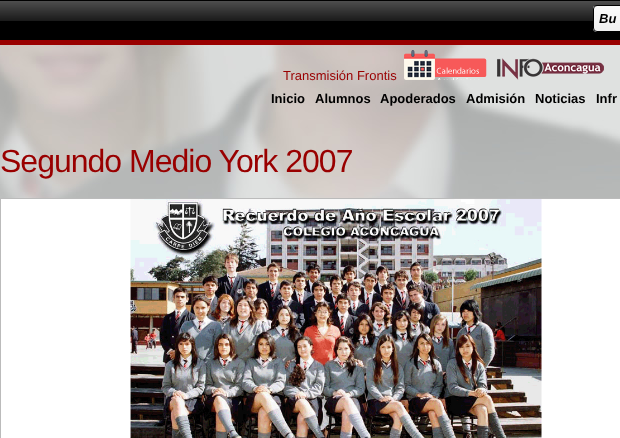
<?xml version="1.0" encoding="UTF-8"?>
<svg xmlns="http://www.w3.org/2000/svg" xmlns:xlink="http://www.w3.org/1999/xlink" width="620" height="438">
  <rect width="100%" height="100%" fill="#ffffff" />
  <image x="0" y="45" width="620" height="153" xlink:href="image1.png" />
  <image x="0" y="0" width="620" height="45" xlink:href="image2.png" />
  <image x="593" y="6" width="27" height="26" xlink:href="image3.png" />
  <rect x="593.5" y="5.5" width="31" height="26" rx="3.5" fill="none" stroke="#000000" />
  <image x="404" y="50" width="83" height="30" xlink:href="image4.png" />
  <image x="497" y="58" width="107" height="22" xlink:href="image5.png" />
  <rect y="198" width="620" height="1" fill="#bbbbbb" />
  <rect y="198" width="1" height="240" fill="#bbbbbb" />
  <image x="1" y="199" width="619" height="239" xlink:href="image6.png" />
  <text x="599" y="23" style="font-family: Liberation Sans; font-size: 13px; font-weight: bold; font-style: italic; fill: #000000">Bu</text>
  <text x="283" y="80" style="font-family: Liberation Sans; font-size: 13px; fill: #990000">Transmisión Frontis</text>
  <text x="271" y="103" style="font-family: Liberation Sans; font-size: 13px; font-weight: bold; fill: #000000">Inicio</text>
  <text x="315" y="103" style="font-family: Liberation Sans; font-size: 13px; font-weight: bold; fill: #000000">Alumnos</text>
  <text x="380" y="103" style="font-family: Liberation Sans; font-size: 13px; font-weight: bold; fill: #000000">Apoderados</text>
  <text x="466" y="103" style="font-family: Liberation Sans; font-size: 13px; font-weight: bold; fill: #000000">Admisión</text>
  <text x="535" y="103" style="font-family: Liberation Sans; font-size: 13px; font-weight: bold; fill: #000000">Noticias</text>
  <text x="596" y="103" style="font-family: Liberation Sans; font-size: 13px; font-weight: bold; fill: #000000">Infr</text>
  <text x="0" y="172" style="font-family: Liberation Sans; font-size: 32px; letter-spacing: -1px; fill: #990000">Segundo Medio York 2007</text>
</svg>
